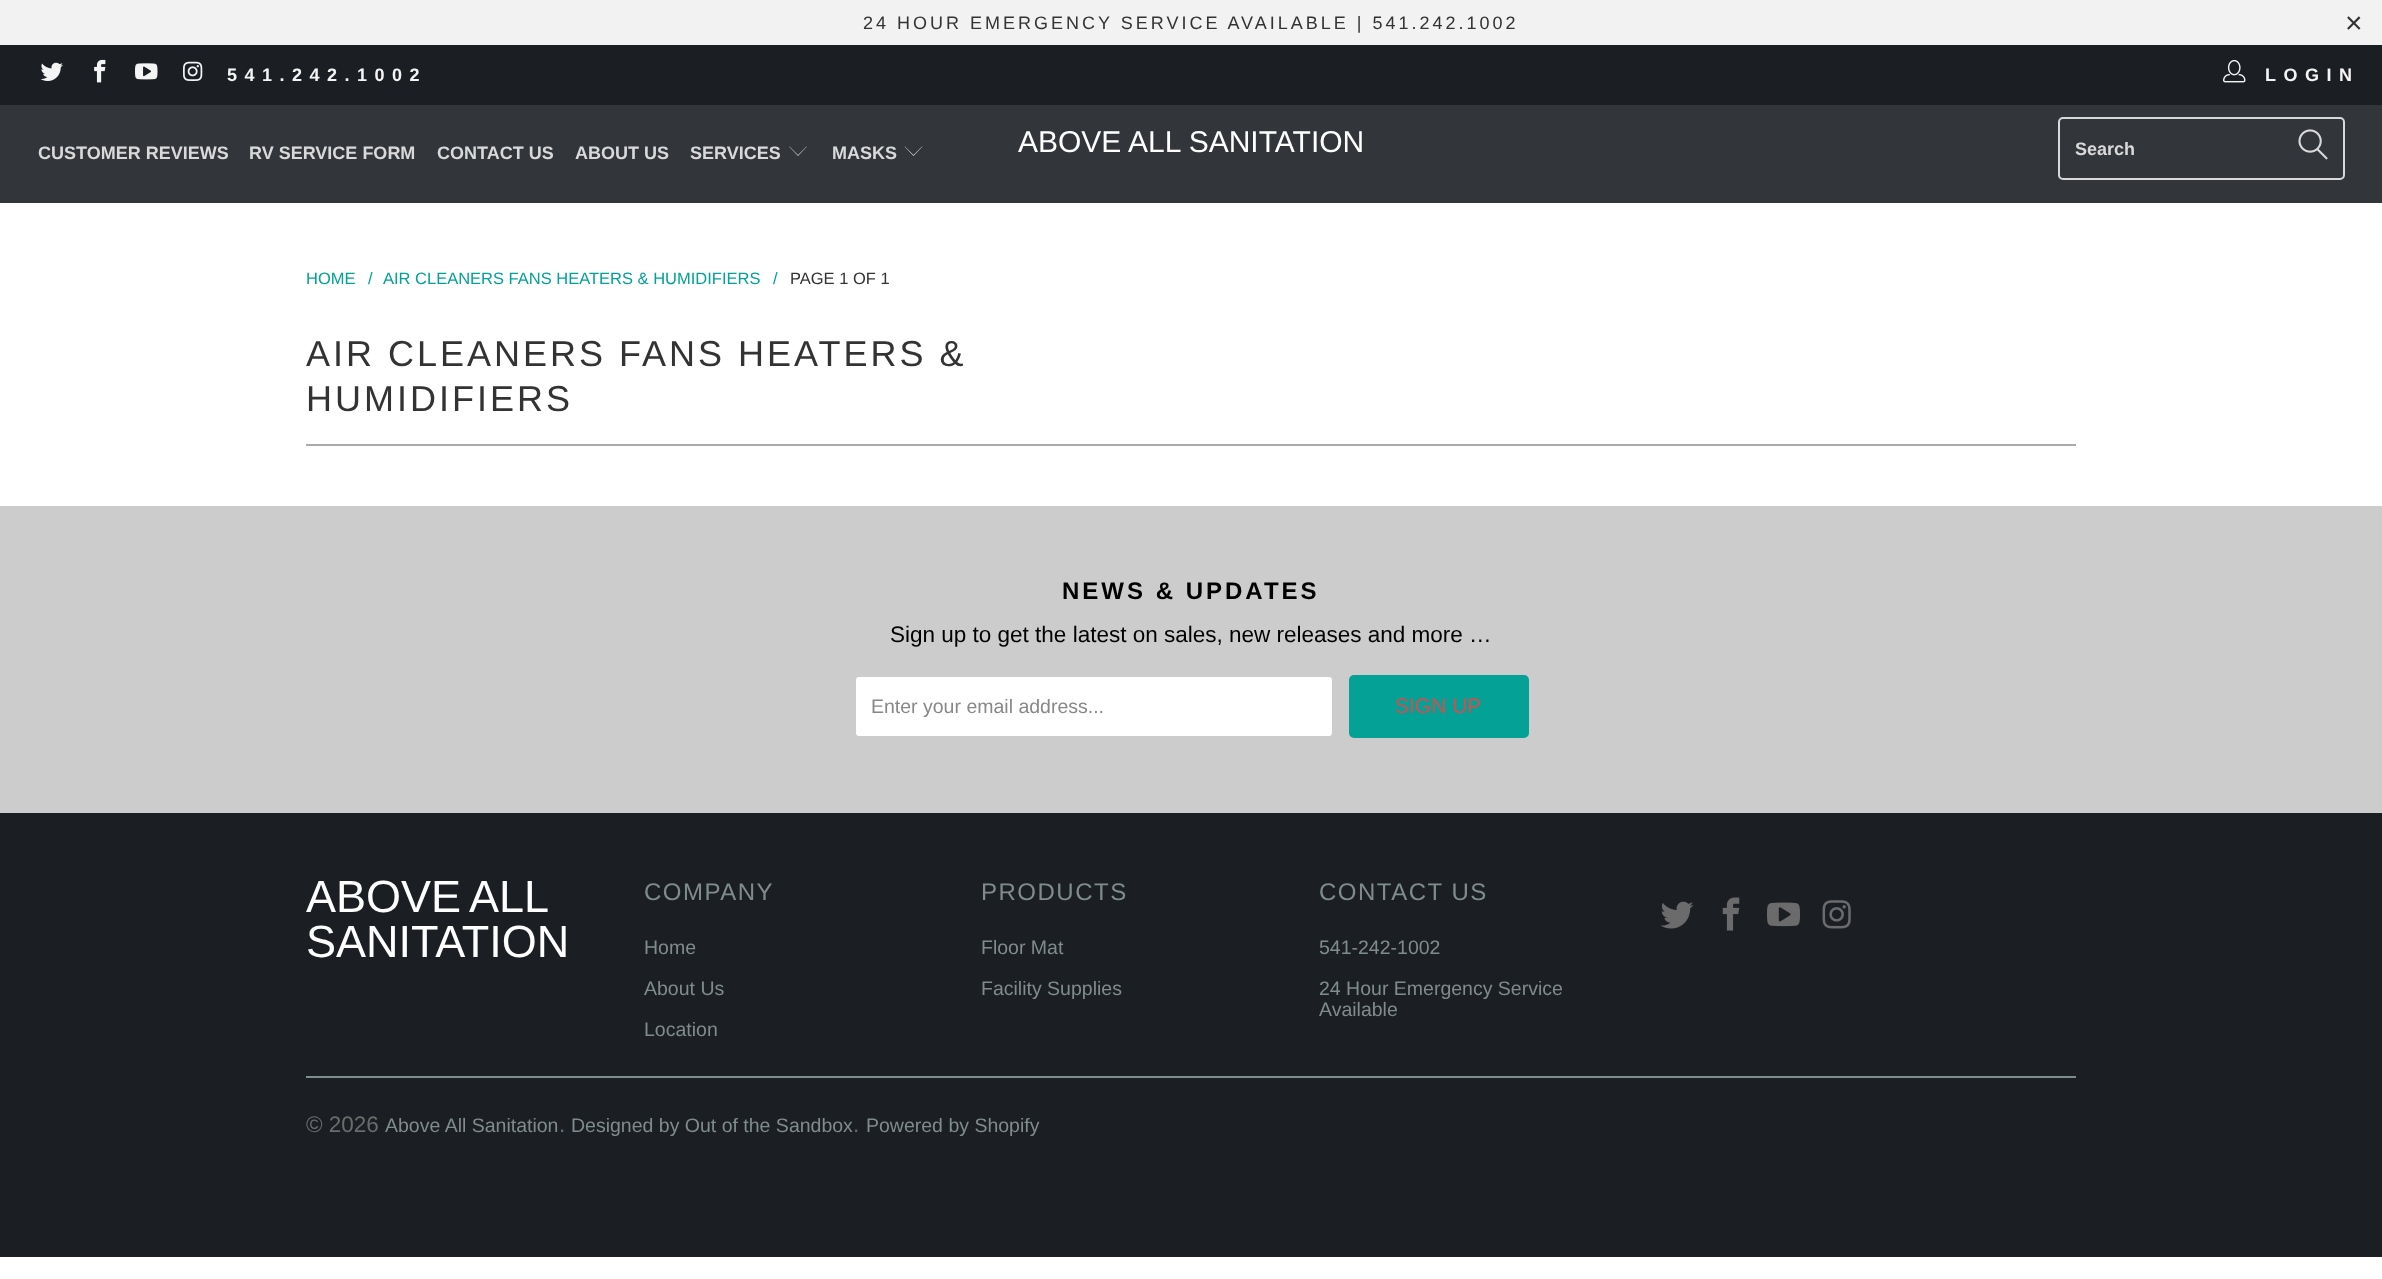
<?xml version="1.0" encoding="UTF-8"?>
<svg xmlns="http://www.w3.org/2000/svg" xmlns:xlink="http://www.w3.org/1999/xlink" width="2382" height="1279">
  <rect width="100%" height="100%" fill="#ffffff" />
  <rect width="2382" height="45" fill="#f2f2f2" />
  <rect y="45" width="2382" height="60" fill="#1b1f23" />
  <image x="40" y="62" width="23" height="19" xlink:href="image1.png" />
  <image x="94" y="59" width="12" height="24" xlink:href="image2.png" />
  <image x="135" y="63" width="23" height="17" xlink:href="image3.png" />
  <image x="183" y="61" width="20" height="20" xlink:href="image4.png" />
  <image x="2223" y="59" width="23" height="24" xlink:href="image5.png" />
  <rect y="105" width="2382" height="98" fill="#323539" />
  <path d="M 798 156 l -9 -9.5 h 0.5 l 8.5 8.5 l 8.5 -8.5 h 0.5 z" fill="#d9d9d9" />
  <path d="M 913.5 156 l -9 -9.5 h 0.5 l 8.5 8.5 l 8.5 -8.5 h 0.5 z" fill="#d9d9d9" />
  <rect x="2059" y="118" width="285" height="61" rx="4" fill="none" stroke="#d9d9d9" stroke-width="2" />
  <image x="2298" y="129" width="30" height="31" xlink:href="image6.png" />
  <rect x="306" y="444" width="1770" height="2" fill="#aaaaaa" />
  <rect y="506" width="2382" height="307" fill="#cccccc" />
  <rect x="855" y="676" width="478" height="61" rx="4" fill="#ffffff" stroke="#cccccc" stroke-width="2" />
  <rect x="1350" y="676" width="178" height="61" rx="4" fill="#03a196" stroke="#03a196" stroke-width="2" />
  <rect y="813" width="2382" height="444" fill="#1b1f23" />
  <image x="1660" y="901" width="34" height="28" xlink:href="image7.png" />
  <image x="1722" y="897" width="18" height="34" xlink:href="image8.png" />
  <image x="1767" y="902" width="33" height="25" xlink:href="image9.png" />
  <image x="1822" y="900" width="29" height="29" xlink:href="image10.png" />
  <rect x="306" y="1076" width="1770" height="2" fill="#7f8c8d" />
  <text x="863" y="29" style="font-family: Liberation Sans; font-size: 18px; letter-spacing: 3px; fill: #333333">24 HOUR EMERGENCY SERVICE AVAILABLE | 541.242.1002</text>
  <text x="2345" y="33" style="font-family: Liberation Sans; font-size: 30px; letter-spacing: 3px; fill: #333333">×</text>
  <text x="227" y="81" style="font-family: Liberation Sans; font-size: 18px; font-weight: bold; letter-spacing: 7.5px; fill: #f4f4f4">541.242.1002</text>
  <text x="2265" y="81" style="font-family: Liberation Sans; font-size: 18px; font-weight: bold; letter-spacing: 7.5px; fill: #f4f4f4">LOGIN</text>
  <text x="38" y="159" style="font-family: Liberation Sans; font-size: 18px; font-weight: bold; fill: #d9d9d9">CUSTOMER REVIEWS</text>
  <text x="249" y="159" style="font-family: Liberation Sans; font-size: 18px; font-weight: bold; fill: #d9d9d9">RV SERVICE FORM</text>
  <text x="437" y="159" style="font-family: Liberation Sans; font-size: 18px; font-weight: bold; fill: #d9d9d9">CONTACT US</text>
  <text x="575" y="159" style="font-family: Liberation Sans; font-size: 18px; font-weight: bold; fill: #d9d9d9">ABOUT US</text>
  <text x="690" y="159" style="font-family: Liberation Sans; font-size: 18px; font-weight: bold; fill: #d9d9d9">SERVICES</text>
  <text x="832" y="159" style="font-family: Liberation Sans; font-size: 18px; font-weight: bold; fill: #d9d9d9">MASKS</text>
  <text x="1018" y="152" style="font-family: Liberation Sans; font-size: 30px; fill: #ffffff">ABOVE ALL SANITATION</text>
  <text x="2075" y="155" style="font-family: Liberation Sans; font-size: 18px; font-weight: bold; fill: #d9d9d9">Search</text>
  <text x="306" y="284" style="font-family: Liberation Sans; font-size: 16.5px; fill: #03a196">HOME</text>
  <text x="368" y="284" style="font-family: Liberation Sans; font-size: 16.5px; fill: #03a196">/</text>
  <text x="383" y="284" style="font-family: Liberation Sans; font-size: 16.5px; fill: #03a196">AIR CLEANERS FANS HEATERS &amp; HUMIDIFIERS</text>
  <text x="773" y="284" style="font-family: Liberation Sans; font-size: 16.5px; fill: #03a196">/</text>
  <text x="790" y="284" style="font-family: Liberation Sans; font-size: 16.5px; fill: #333333">PAGE 1 OF 1</text>
  <text x="306" y="366" style="font-family: Liberation Sans; font-size: 36px; letter-spacing: 3px; fill: #333333">AIR CLEANERS FANS HEATERS &amp;</text>
  <text x="306" y="411" style="font-family: Liberation Sans; font-size: 36px; letter-spacing: 3px; fill: #333333">HUMIDIFIERS</text>
  <text x="1062" y="599" style="font-family: Liberation Sans; font-size: 24px; font-weight: bold; letter-spacing: 3px; fill: #000000">NEWS &amp; UPDATES</text>
  <text x="890" y="642" style="font-family: Liberation Sans; font-size: 22.5px; fill: #000000">Sign up to get the latest on sales, new releases and more …</text>
  <text x="871" y="713" style="font-family: Liberation Sans; font-size: 19.5px; fill: #888888">Enter your email address...</text>
  <text x="1395" y="713" style="font-family: Liberation Sans; font-size: 21px; fill: #d54d4d">SIGN UP</text>
  <text x="306" y="912" word-spacing="-2" style="font-family: Liberation Sans; font-size: 45px; fill: #ffffff">ABOVE ALL</text>
  <text x="306" y="957" style="font-family: Liberation Sans; font-size: 45px; fill: #ffffff">SANITATION</text>
  <text x="644" y="900" style="font-family: Liberation Sans; font-size: 24px; letter-spacing: 1.5px; fill: #7f8c8d">COMPANY</text>
  <text x="644" y="954" style="font-family: Liberation Sans; font-size: 19.5px; fill: #7f8c8d">Home</text>
  <text x="644" y="995" style="font-family: Liberation Sans; font-size: 19.5px; fill: #7f8c8d">About Us</text>
  <text x="644" y="1036" style="font-family: Liberation Sans; font-size: 19.5px; fill: #7f8c8d">Location</text>
  <text x="981" y="900" style="font-family: Liberation Sans; font-size: 24px; letter-spacing: 1.5px; fill: #7f8c8d">PRODUCTS</text>
  <text x="981" y="954" style="font-family: Liberation Sans; font-size: 19.5px; fill: #7f8c8d">Floor Mat</text>
  <text x="981" y="995" style="font-family: Liberation Sans; font-size: 19.5px; fill: #7f8c8d">Facility Supplies</text>
  <text x="1319" y="900" style="font-family: Liberation Sans; font-size: 24px; letter-spacing: 1.5px; fill: #7f8c8d">CONTACT US</text>
  <text x="1319" y="954" style="font-family: Liberation Sans; font-size: 19.5px; fill: #7f8c8d">541-242-1002</text>
  <text x="1319" y="995" style="font-family: Liberation Sans; font-size: 19.5px; fill: #7f8c8d">24 Hour Emergency Service</text>
  <text x="1319" y="1016" style="font-family: Liberation Sans; font-size: 19.5px; fill: #7f8c8d">Available</text>
  <text x="306" y="1132" style="font-family: Liberation Sans; font-size: 22.5px; fill: #6b6b6b">© 2026</text>
  <text x="385" y="1132" style="font-family: Liberation Sans; font-size: 19.5px; fill: #7f8c8d">Above All Sanitation</text>
  <text x="559" y="1132" style="font-family: Liberation Sans; font-size: 22.5px; fill: #6b6b6b">.</text>
  <text x="571" y="1132" style="font-family: Liberation Sans; font-size: 19.5px; fill: #7f8c8d">Designed by Out of the Sandbox</text>
  <text x="853" y="1132" style="font-family: Liberation Sans; font-size: 22.5px; fill: #6b6b6b">.</text>
  <text x="866" y="1132" style="font-family: Liberation Sans; font-size: 19.5px; fill: #7f8c8d">Powered by Shopify</text>
</svg>
